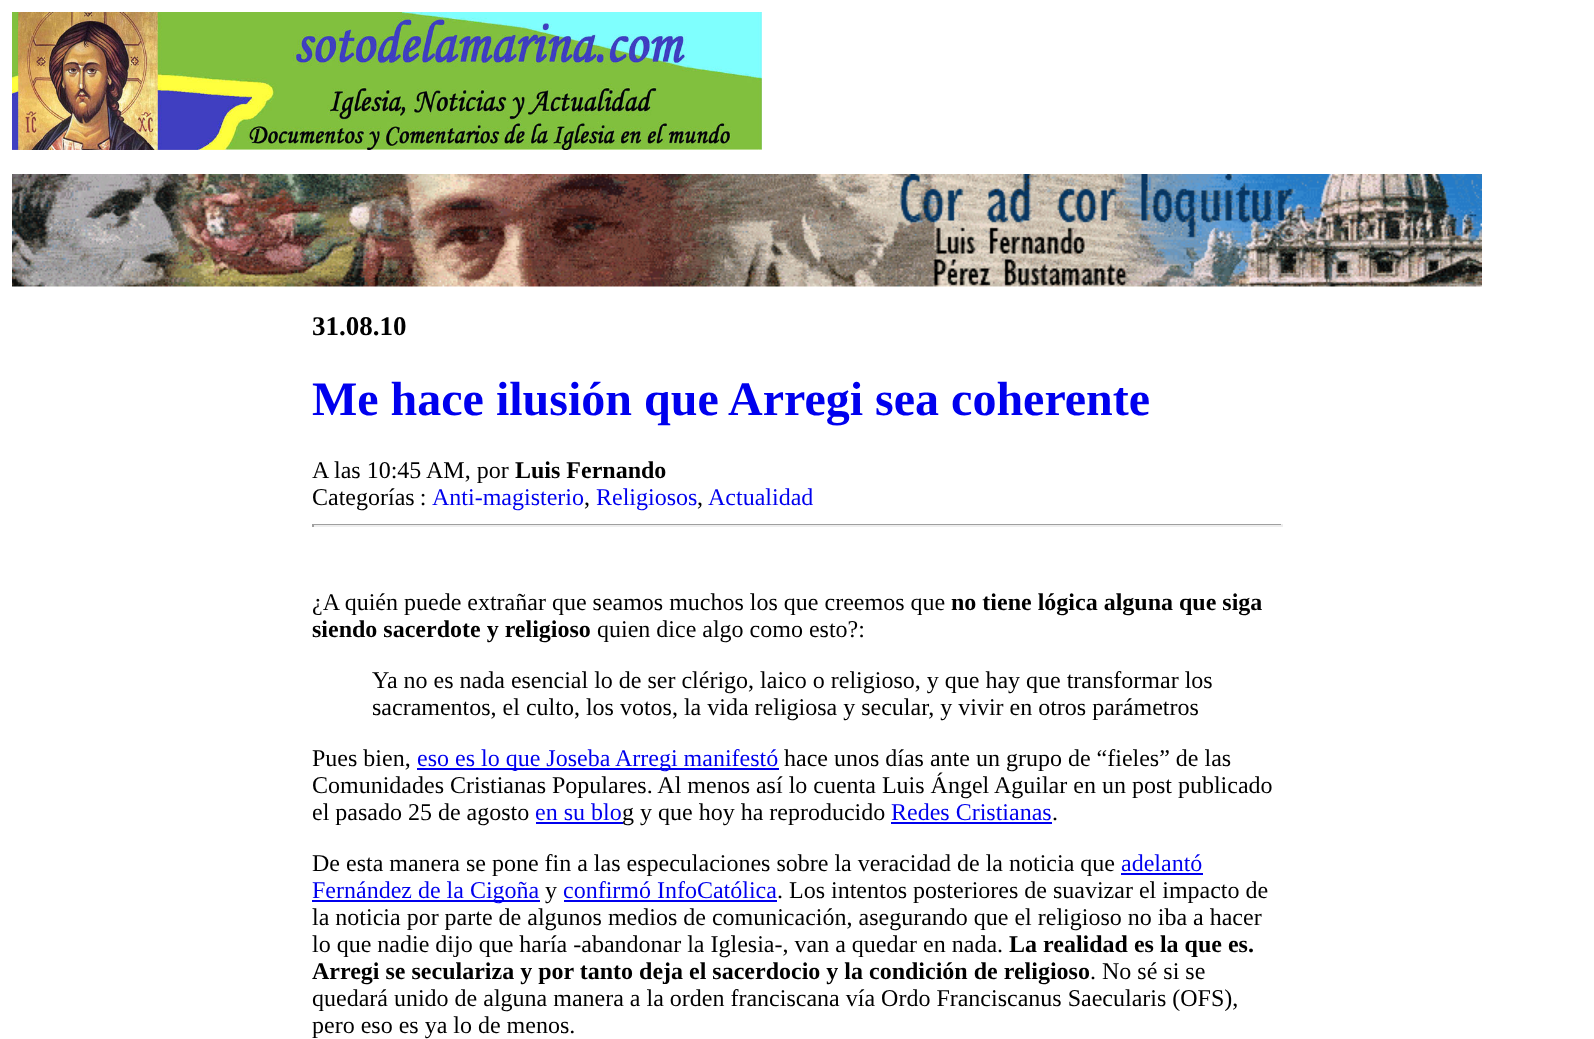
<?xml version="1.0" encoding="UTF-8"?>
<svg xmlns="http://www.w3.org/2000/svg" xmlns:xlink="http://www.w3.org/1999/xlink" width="1594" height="1039">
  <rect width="100%" height="100%" fill="#ffffff" />
  <image x="12" y="12" width="750" height="138" xlink:href="image1.png" />
  <image x="12" y="174" width="1470" height="113" xlink:href="image2.png" />
  <rect x="312" y="524" width="971" height="1" fill="#9f9f9f" />
  <rect x="1281" y="524" width="2" height="3" fill="#eeeeee" />
  <rect x="312" y="525" width="971" height="2" fill="#eeeeee" />
  <rect x="312" y="524" width="2" height="3" fill="#9f9f9f" />
  <rect x="417" y="768" width="362" height="2" fill="#0000ee" />
  <rect x="536" y="822" width="87" height="2" fill="#0000ee" />
  <rect x="891" y="822" width="161" height="2" fill="#0000ee" />
  <rect x="1121" y="873" width="82" height="2" fill="#0000ee" />
  <rect x="312" y="900" width="228" height="2" fill="#0000ee" />
  <rect x="564" y="900" width="213" height="2" fill="#0000ee" />
  <text x="312" y="335" style="font-family: Liberation Serif; font-size: 27px; font-weight: bold; fill: #000000">31.08.10</text>
  <text x="312" y="415" style="font-family: Liberation Serif; font-size: 48px; font-weight: bold; fill: #0000ee">Me hace ilusión que Arregi sea coherente</text>
  <text x="312" y="478" style="font-family: Liberation Serif; font-size: 24px; fill: #000000">A las 10:45 AM, por</text>
  <text x="515" y="478" style="font-family: Liberation Serif; font-size: 24px; font-weight: bold; fill: #000000">Luis Fernando</text>
  <text x="312" y="505" word-spacing="-1" style="font-family: Liberation Serif; font-size: 24px; fill: #000000">Categorías :</text>
  <text x="432" y="505" style="font-family: Liberation Serif; font-size: 24px; fill: #0000ee">Anti-magisterio</text>
  <text x="584" y="505" style="font-family: Liberation Serif; font-size: 24px; fill: #000000">,</text>
  <text x="596" y="505" style="font-family: Liberation Serif; font-size: 24px; fill: #0000ee">Religiosos</text>
  <text x="697" y="505" style="font-family: Liberation Serif; font-size: 24px; fill: #000000">,</text>
  <text x="708" y="505" style="font-family: Liberation Serif; font-size: 24px; fill: #0000ee">Actualidad</text>
  <text x="312" y="610" style="font-family: Liberation Serif; font-size: 24px; fill: #000000">¿A quién puede extrañar que seamos muchos los que creemos que</text>
  <text x="951" y="610" style="font-family: Liberation Serif; font-size: 24px; font-weight: bold; fill: #000000">no tiene lógica alguna que siga</text>
  <text x="312" y="637" style="font-family: Liberation Serif; font-size: 24px; font-weight: bold; fill: #000000">siendo sacerdote y religioso</text>
  <text x="597" y="637" style="font-family: Liberation Serif; font-size: 24px; fill: #000000">quien dice algo como esto?:</text>
  <text x="372" y="688" style="font-family: Liberation Serif; font-size: 24px; fill: #000000">Ya no es nada esencial lo de ser clérigo, laico o religioso, y que hay que transformar los</text>
  <text x="372" y="715" style="font-family: Liberation Serif; font-size: 24px; fill: #000000">sacramentos, el culto, los votos, la vida religiosa y secular, y vivir en otros parámetros</text>
  <text x="312" y="766" style="font-family: Liberation Serif; font-size: 24px; fill: #000000">Pues bien,</text>
  <text x="417" y="766" style="font-family: Liberation Serif; font-size: 24px; fill: #0000ee">eso es lo que Joseba Arregi manifestó</text>
  <text x="784" y="766" style="font-family: Liberation Serif; font-size: 24px; fill: #000000">hace unos días ante un grupo de “fieles” de las</text>
  <text x="312" y="793" style="font-family: Liberation Serif; font-size: 24px; fill: #000000">Comunidades Cristianas Populares. Al menos así lo cuenta Luis Ángel Aguilar en un post publicado</text>
  <text x="312" y="820" style="font-family: Liberation Serif; font-size: 24px; fill: #000000">el pasado 25 de agosto</text>
  <text x="535" y="820" style="font-family: Liberation Serif; font-size: 24px; fill: #0000ee">en su blo</text>
  <text x="622" y="820" style="font-family: Liberation Serif; font-size: 24px; fill: #000000">g y que hoy ha reproducido</text>
  <text x="891" y="820" style="font-family: Liberation Serif; font-size: 24px; fill: #0000ee">Redes Cristianas</text>
  <text x="1052" y="820" style="font-family: Liberation Serif; font-size: 24px; fill: #000000">.</text>
  <text x="312" y="871" style="font-family: Liberation Serif; font-size: 24px; fill: #000000">De esta manera se pone fin a las especulaciones sobre la veracidad de la noticia que</text>
  <text x="1121" y="871" style="font-family: Liberation Serif; font-size: 24px; fill: #0000ee">adelantó</text>
  <text x="312" y="898" style="font-family: Liberation Serif; font-size: 24px; fill: #0000ee">Fernández de la Cigoña</text>
  <text x="545" y="898" style="font-family: Liberation Serif; font-size: 24px; fill: #000000">y</text>
  <text x="563" y="898" style="font-family: Liberation Serif; font-size: 24px; fill: #0000ee">confirmó InfoCatólica</text>
  <text x="777" y="898" style="font-family: Liberation Serif; font-size: 24px; fill: #000000">. Los intentos posteriores de suavizar el impacto de</text>
  <text x="312" y="925" style="font-family: Liberation Serif; font-size: 24px; fill: #000000">la noticia por parte de algunos medios de comunicación, asegurando que el religioso no iba a hacer</text>
  <text x="312" y="952" style="font-family: Liberation Serif; font-size: 24px; fill: #000000">lo que nadie dijo que haría -abandonar la Iglesia-, van a quedar en nada.</text>
  <text x="1009" y="952" style="font-family: Liberation Serif; font-size: 24px; font-weight: bold; fill: #000000">La realidad es la que es.</text>
  <text x="312" y="979" style="font-family: Liberation Serif; font-size: 24px; font-weight: bold; fill: #000000">Arregi se seculariza y por tanto deja el sacerdocio y la condición de religioso</text>
  <text x="1090" y="979" style="font-family: Liberation Serif; font-size: 24px; fill: #000000">. No sé si se</text>
  <text x="312" y="1006" style="font-family: Liberation Serif; font-size: 24px; fill: #000000">quedará unido de alguna manera a la orden franciscana vía Ordo Franciscanus Saecularis (OFS),</text>
  <text x="312" y="1033" style="font-family: Liberation Serif; font-size: 24px; fill: #000000">pero eso es ya lo de menos.</text>
</svg>
